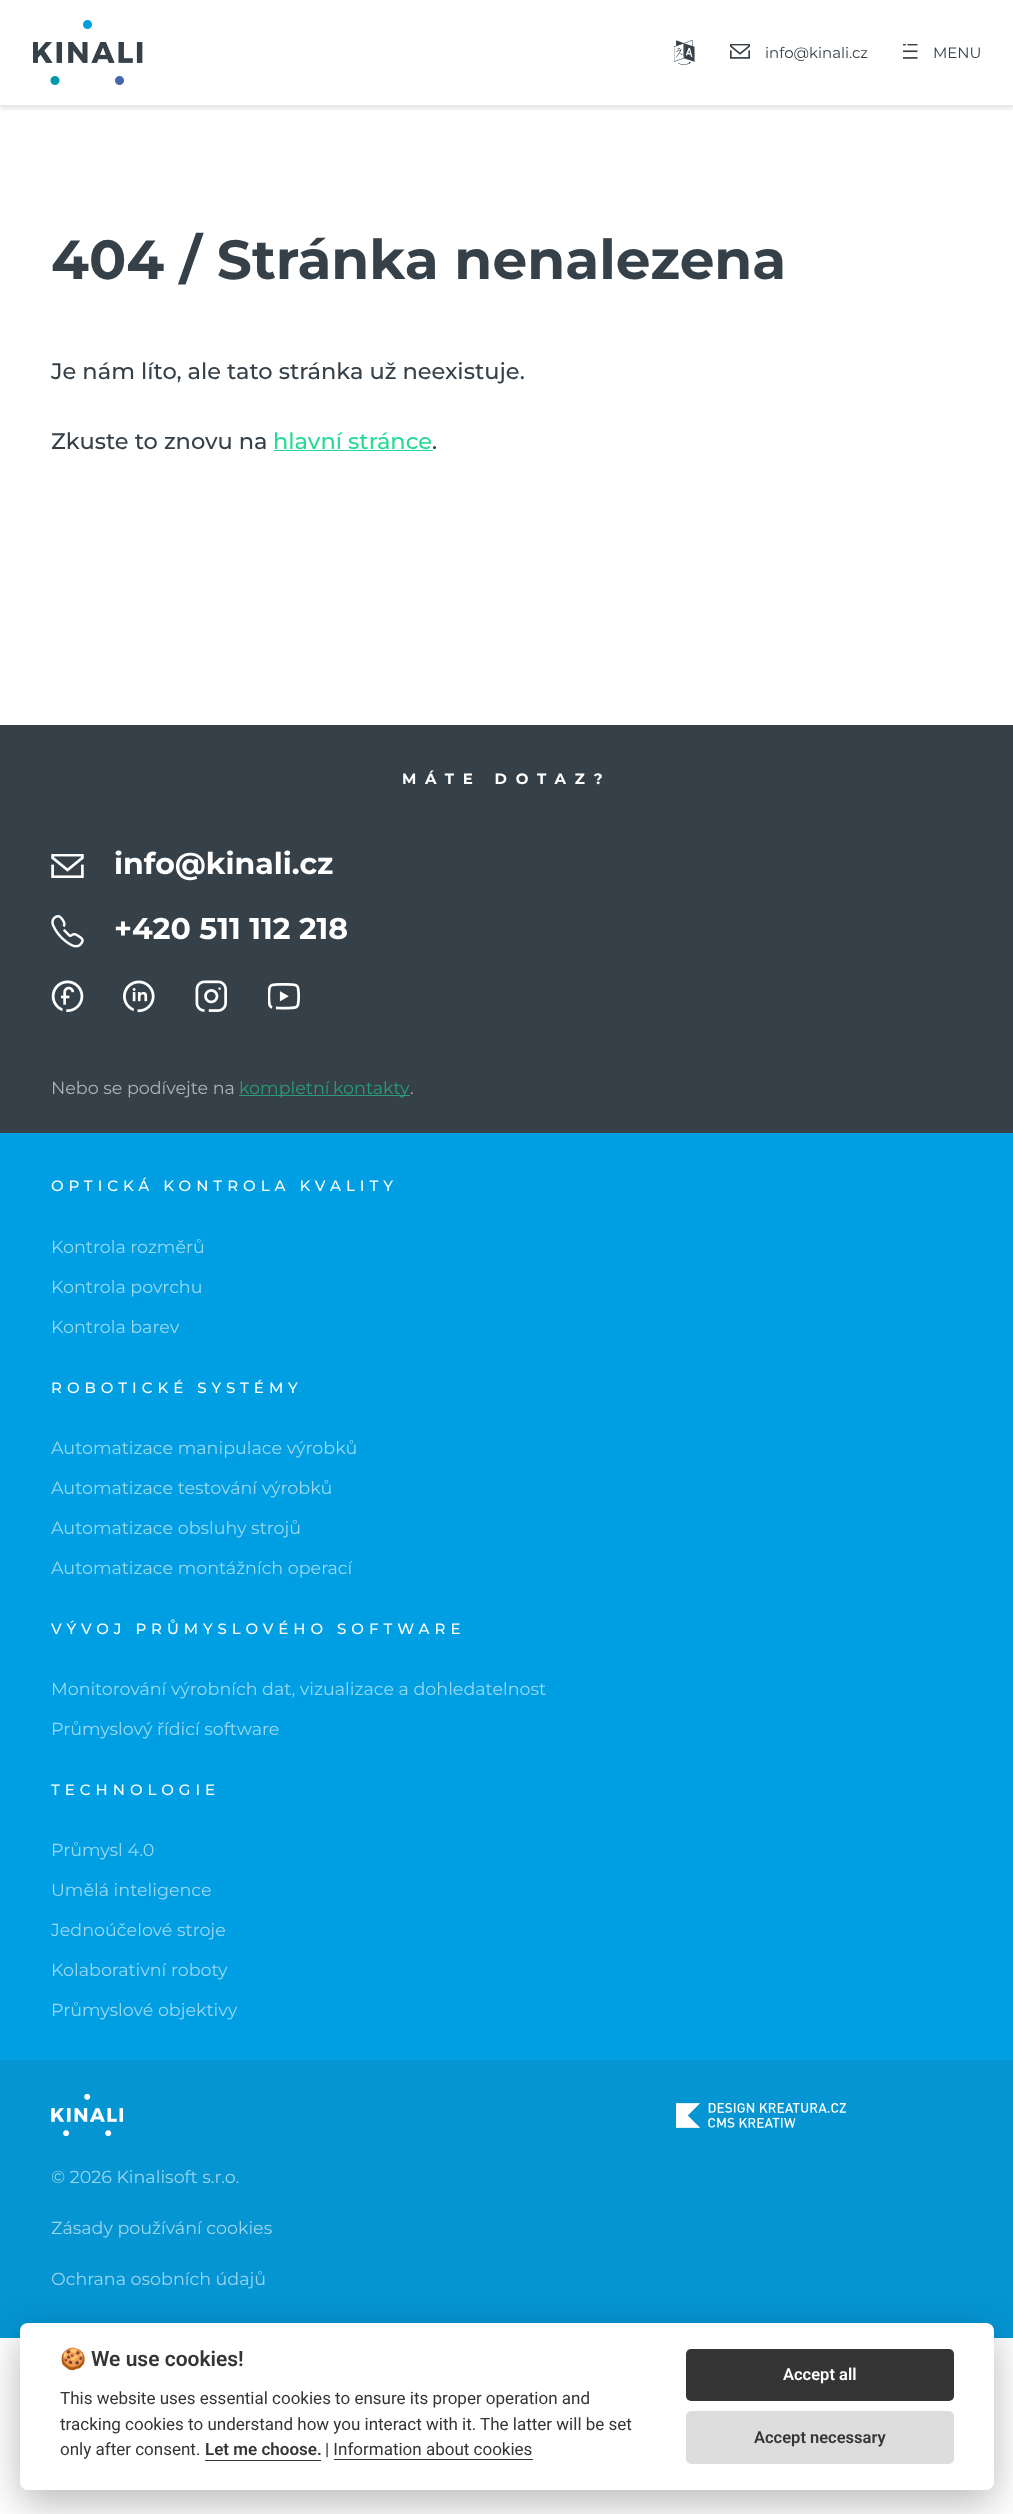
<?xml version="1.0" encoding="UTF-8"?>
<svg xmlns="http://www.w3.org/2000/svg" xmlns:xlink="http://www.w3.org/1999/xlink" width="1013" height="2514">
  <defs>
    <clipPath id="clip1"><rect x="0" y="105" width="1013" height="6" /></clipPath>
  </defs>
  <rect width="100%" height="100%" fill="#ffffff" />
  <g clip-path="url(#clip1)">
    <rect y="4" width="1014" height="105" fill="#000000" fill-opacity="0.1" filter="blur(2px)" />
  </g>
  <image x="33" y="20" width="110" height="65" xlink:href="image1.png" />
  <image x="674" y="40" width="21" height="25" xlink:href="image2.png" />
  <image x="730" y="44" width="20" height="15" xlink:href="image3.png" />
  <image x="903" y="44" width="15" height="15" xlink:href="image4.png" />
  <rect x="274" y="450" width="159" height="1" fill="#25da96" />
  <rect y="725" width="1013" height="408" fill="#354049" />
  <image x="51" y="854" width="33" height="24" xlink:href="image5.png" />
  <image x="51" y="915" width="33" height="33" xlink:href="image6.png" />
  <image x="51" y="980" width="33" height="32" xlink:href="image7.png" />
  <image x="123" y="980" width="32" height="33" xlink:href="image8.png" />
  <image x="195" y="980" width="32" height="32" xlink:href="image9.png" />
  <image x="268" y="983" width="32" height="27" xlink:href="image10.png" />
  <rect x="239" y="1095" width="171" height="1" fill="#2b9c77" />
  <rect y="1133" width="1013" height="927" fill="#009fe3" />
  <rect y="2060" width="1013" height="278" fill="#0595d3" />
  <image x="676" y="2103" width="170" height="25" xlink:href="image11.png" />
  <image x="51" y="2094" width="72" height="42" xlink:href="image12.png" />
  <rect x="20" y="2335" width="974" height="168" rx="8" fill="#020203" fill-opacity="0.28" filter="blur(19px)" />
  <rect x="20" y="2323" width="974" height="167" rx="8" fill="#ffffff" />
  <rect x="205" y="2460" width="116" height="1" fill="#353535" />
  <rect x="334" y="2459" width="199" height="1" fill="#353535" />
  <rect x="686" y="2349" width="268" height="52" rx="5" fill="#353535" />
  <rect x="686" y="2411" width="268" height="53" rx="5" fill="#dddddd" />
  <text x="765" y="58" style="font-family: Montserrat; font-size: 15px; fill: #354049">info@kinali.cz</text>
  <text x="933" y="58" style="font-family: Montserrat; font-size: 15px; fill: #354049">MENU</text>
  <text x="51" y="279" style="font-family: Montserrat; font-size: 55px; font-weight: bold; fill: #354049">404 / Stránka nenalezena</text>
  <text x="51" y="379" style="font-family: Montserrat; font-size: 22.5px; font-weight: 500; fill: #354049">Je nám líto, ale tato stránka už neexistuje.</text>
  <text x="51" y="449" style="font-family: Montserrat; font-size: 22.5px; font-weight: 500; fill: #354049">Zkuste to znovu na</text>
  <text x="273" y="449" style="font-family: Montserrat; font-size: 22.5px; font-weight: 500; fill: #25da96">hlavní stránce</text>
  <text x="432" y="449" style="font-family: Montserrat; font-size: 22.5px; font-weight: 500; fill: #354049">.</text>
  <text x="402" y="784" style="font-family: Montserrat; font-size: 15px; font-weight: bold; letter-spacing: 8.75px; fill: #ffffff">MÁTE DOTAZ?</text>
  <text x="114" y="874" style="font-family: Montserrat; font-size: 30px; font-weight: bold; fill: #ffffff">info@kinali.cz</text>
  <text x="114" y="939" style="font-family: Montserrat; font-size: 30px; font-weight: bold; fill: #ffffff">+420 511 112 218</text>
  <text x="51" y="1094" style="font-family: Montserrat; font-size: 17.5px; fill: #aeb3b6">Nebo se podívejte na</text>
  <text x="239" y="1094" word-spacing="-1" style="font-family: Montserrat; font-size: 17.5px; fill: #2b9c77">kompletní kontakty</text>
  <text x="410" y="1094" style="font-family: Montserrat; font-size: 17.5px; fill: #aeb3b6">.</text>
  <text x="51" y="1191" style="font-family: Montserrat; font-size: 15px; font-weight: 500; letter-spacing: 5px; fill: #ffffff">OPTICKÁ KONTROLA KVALITY</text>
  <text x="51" y="1253" style="font-family: Montserrat; font-size: 17.5px; fill: #99d9f4">Kontrola rozměrů</text>
  <text x="51" y="1293" style="font-family: Montserrat; font-size: 17.5px; fill: #99d9f4">Kontrola povrchu</text>
  <text x="51" y="1333" style="font-family: Montserrat; font-size: 17.5px; fill: #99d9f4">Kontrola barev</text>
  <text x="51" y="1393" style="font-family: Montserrat; font-size: 15px; font-weight: 500; letter-spacing: 5px; fill: #ffffff">ROBOTICKÉ SYSTÉMY</text>
  <text x="51" y="1454" style="font-family: Montserrat; font-size: 17.5px; fill: #99d9f4">Automatizace manipulace výrobků</text>
  <text x="51" y="1494" style="font-family: Montserrat; font-size: 17.5px; fill: #99d9f4">Automatizace testování výrobků</text>
  <text x="51" y="1534" style="font-family: Montserrat; font-size: 17.5px; fill: #99d9f4">Automatizace obsluhy strojů</text>
  <text x="51" y="1574" style="font-family: Montserrat; font-size: 17.5px; fill: #99d9f4">Automatizace montážních operací</text>
  <text x="51" y="1634" style="font-family: Montserrat; font-size: 15px; font-weight: 500; letter-spacing: 5px; fill: #ffffff">VÝVOJ PRŮMYSLOVÉHO SOFTWARE</text>
  <text x="51" y="1695" style="font-family: Montserrat; font-size: 17.5px; fill: #99d9f4">Monitorování výrobních dat, vizualizace a dohledatelnost</text>
  <text x="51" y="1735" style="font-family: Montserrat; font-size: 17.5px; fill: #99d9f4">Průmyslový řídicí software</text>
  <text x="51" y="1795" style="font-family: Montserrat; font-size: 15px; font-weight: 500; letter-spacing: 5px; fill: #ffffff">TECHNOLOGIE</text>
  <text x="51" y="1856" style="font-family: Montserrat; font-size: 17.5px; fill: #99d9f4">Průmysl 4.0</text>
  <text x="51" y="1896" style="font-family: Montserrat; font-size: 17.5px; fill: #99d9f4">Umělá inteligence</text>
  <text x="51" y="1936" style="font-family: Montserrat; font-size: 17.5px; fill: #99d9f4">Jednoúčelové stroje</text>
  <text x="51" y="1976" style="font-family: Montserrat; font-size: 17.5px; fill: #99d9f4">Kolaborativní roboty</text>
  <text x="51" y="2016" style="font-family: Montserrat; font-size: 17.5px; fill: #99d9f4">Průmyslové objektivy</text>
  <text x="51" y="2183" style="font-family: Montserrat; font-size: 17.5px; fill: #9bd5ed">© 2026 Kinalisoft s.r.o.</text>
  <text x="51" y="2234" style="font-family: Montserrat; font-size: 17.5px; fill: #9bd5ed">Zásady používání cookies</text>
  <text x="51" y="2285" style="font-family: Montserrat; font-size: 17.5px; fill: #9bd5ed">Ochrana osobních údajů</text>
  <text x="60" y="2366" style="font-family: Noto Color Emoji; font-size: 21px; font-weight: bold; fill: #353535">🍪</text>
  <text x="91" y="2366" style="font-family: Roboto; font-size: 21px; font-weight: 600; fill: #353535">We use cookies!</text>
  <text x="60" y="2404" style="font-family: Roboto; font-size: 17px; fill: #353535">This website uses essential cookies to ensure its proper operation and</text>
  <text x="60" y="2430" style="font-family: Roboto; font-size: 17px; fill: #353535">tracking cookies to understand how you interact with it. The latter will be set</text>
  <text x="60" y="2455" style="font-family: Roboto; font-size: 17px; fill: #353535">only after consent.</text>
  <text x="205" y="2455" style="font-family: Roboto; font-size: 17px; font-weight: 600; fill: #353535">Let me choose.</text>
  <text x="325" y="2455" style="font-family: Roboto; font-size: 17px; fill: #353535">| Information about cookies</text>
  <text x="783" y="2380" style="font-family: Roboto; font-size: 16.5px; font-weight: 600; fill: #ffffff">Accept all</text>
  <text x="754" y="2443" style="font-family: Roboto; font-size: 16.5px; font-weight: 600; fill: #353535">Accept necessary</text>
</svg>
